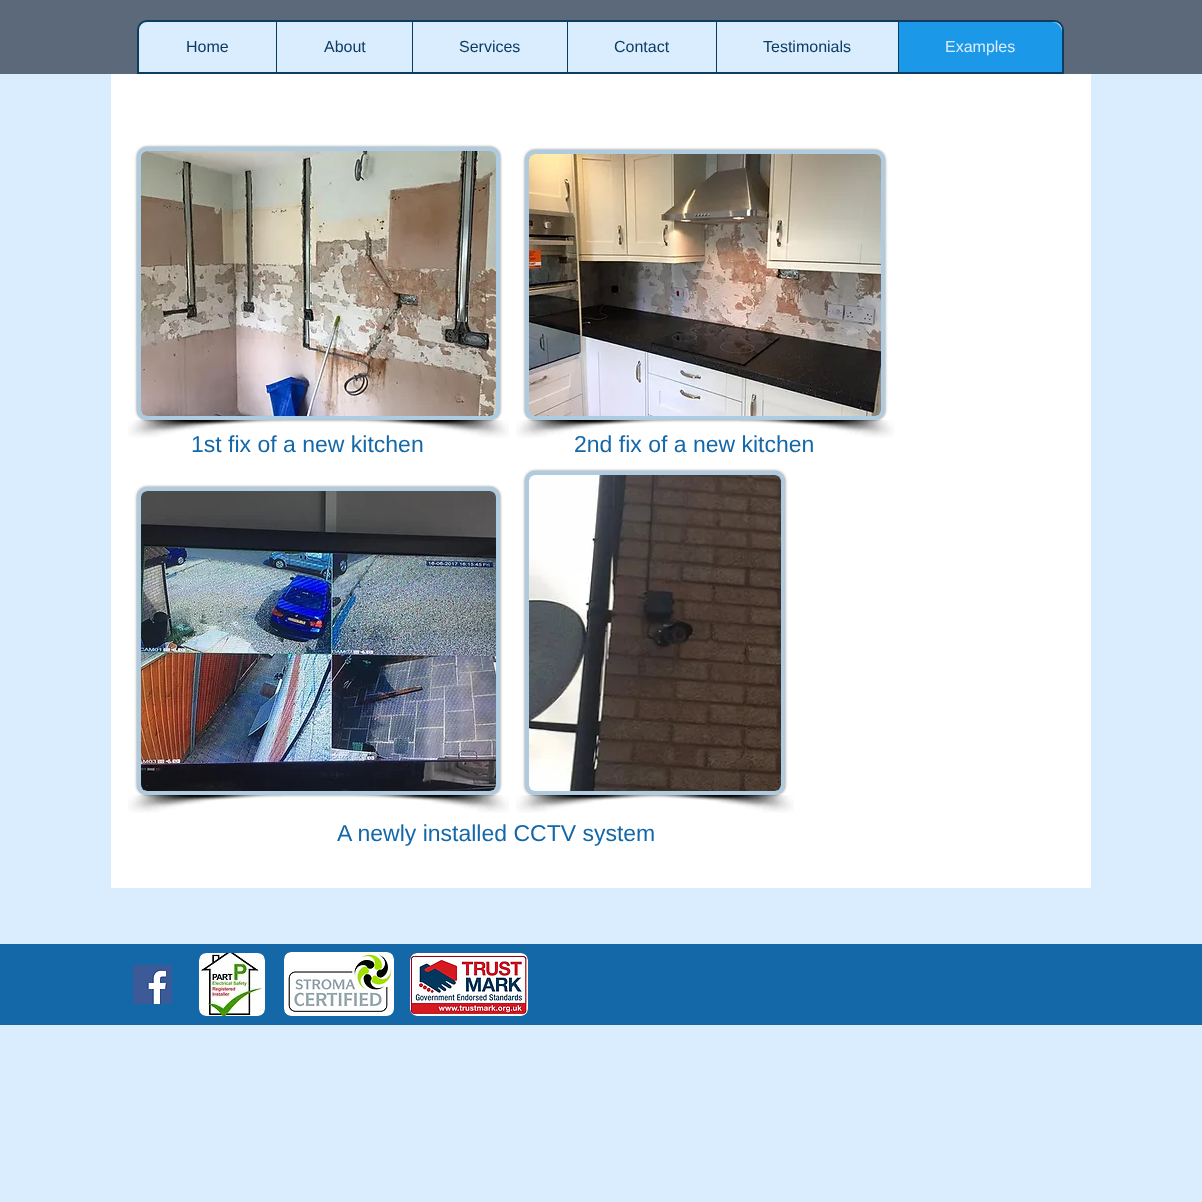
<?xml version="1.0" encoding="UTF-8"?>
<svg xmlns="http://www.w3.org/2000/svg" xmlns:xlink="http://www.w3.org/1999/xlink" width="1202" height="1202">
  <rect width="100%" height="100%" fill="#daedff" />
  <rect width="1202" height="74" fill="#5c697b" />
  <path d="M 147 21 h 907 c 5 0 9 4 9 9 v 43 h -925 v -43 c 0 -5 4 -9 9 -9 z" fill="#daedff" stroke="#0c3c60" stroke-width="2" />
  <rect x="276" y="22" width="1" height="50" fill="#0c3c60" />
  <rect x="412" y="22" width="1" height="50" fill="#0c3c60" />
  <rect x="567" y="22" width="1" height="50" fill="#0c3c60" />
  <rect x="716" y="22" width="1" height="50" fill="#0c3c60" />
  <path d="M 898 22 h 154 c 5.5 0 10 4.5 10 10 v 40 h -164 z" fill="#1b99e8" />
  <rect x="898" y="22" width="1" height="50" fill="#0c3c60" />
  <rect x="111" y="74" width="980" height="814" fill="#ffffff" />
  <rect x="137" y="147" width="363" height="273" rx="10" fill="#000000" fill-opacity="0.5" filter="blur(1.5px)" />
  <rect x="139" y="149" width="359" height="269" rx="8" fill="#afcbe0" stroke="#afcbe0" stroke-width="4" />
  <image x="141" y="151" width="355" height="265" xlink:href="image1.png" />
  <image x="128" y="420" width="154" height="18" xlink:href="image2.png" />
  <image x="355" y="420" width="154" height="18" xlink:href="image3.png" />
  <rect x="525" y="150" width="360" height="270" rx="10" fill="#000000" fill-opacity="0.5" filter="blur(1.5px)" />
  <rect x="527" y="152" width="356" height="266" rx="8" fill="#afcbe0" stroke="#afcbe0" stroke-width="4" />
  <image x="529" y="154" width="352" height="262" xlink:href="image4.png" />
  <image x="516" y="420" width="154" height="18" xlink:href="image2.png" />
  <image x="740" y="420" width="154" height="18" xlink:href="image3.png" />
  <rect x="137" y="487" width="363" height="308" rx="10" fill="#000000" fill-opacity="0.5" filter="blur(1.5px)" />
  <rect x="139" y="489" width="359" height="304" rx="8" fill="#afcbe0" stroke="#afcbe0" stroke-width="4" />
  <image x="141" y="491" width="355" height="300" xlink:href="image5.png" />
  <image x="128" y="795" width="154" height="18" xlink:href="image2.png" />
  <image x="355" y="795" width="154" height="18" xlink:href="image3.png" />
  <rect x="525" y="471" width="260" height="324" rx="10" fill="#000000" fill-opacity="0.5" filter="blur(1.5px)" />
  <rect x="527" y="473" width="256" height="320" rx="8" fill="#afcbe0" stroke="#afcbe0" stroke-width="4" />
  <image x="529" y="475" width="252" height="316" xlink:href="image6.png" />
  <image x="516" y="795" width="154" height="18" xlink:href="image2.png" />
  <image x="643" y="795" width="151" height="18" xlink:href="image7.png" />
  <rect y="944" width="1202" height="81" fill="#1468a8" />
  <image x="133" y="965" width="39" height="39" xlink:href="image8.png" />
  <image x="199" y="953" width="66" height="63" xlink:href="image9.png" />
  <image x="284" y="952" width="110" height="64" xlink:href="image10.png" />
  <image x="410" y="953" width="118" height="63" xlink:href="image11.png" />
  <text x="186" y="52" style="font-family: Liberation Sans; font-size: 16px; fill: #0c3c60">Home</text>
  <text x="324" y="52" style="font-family: Liberation Sans; font-size: 16px; fill: #0c3c60">About</text>
  <text x="459" y="52" style="font-family: Liberation Sans; font-size: 16px; fill: #0c3c60">Services</text>
  <text x="614" y="52" style="font-family: Liberation Sans; font-size: 16px; fill: #0c3c60">Contact</text>
  <text x="763" y="52" style="font-family: Liberation Sans; font-size: 16px; fill: #0c3c60">Testimonials</text>
  <text x="945" y="52" style="font-family: Liberation Sans; font-size: 16px; fill: #daedff">Examples</text>
  <text x="191" y="452" style="font-family: Liberation Sans; font-size: 23px; fill: #1468a8">1st fix of a new kitchen</text>
  <text x="574" y="452" style="font-family: Liberation Sans; font-size: 23px; fill: #1468a8">2nd fix of a new kitchen</text>
  <text x="337" y="841" style="font-family: Liberation Sans; font-size: 23px; fill: #1468a8">A newly installed CCTV system</text>
</svg>
